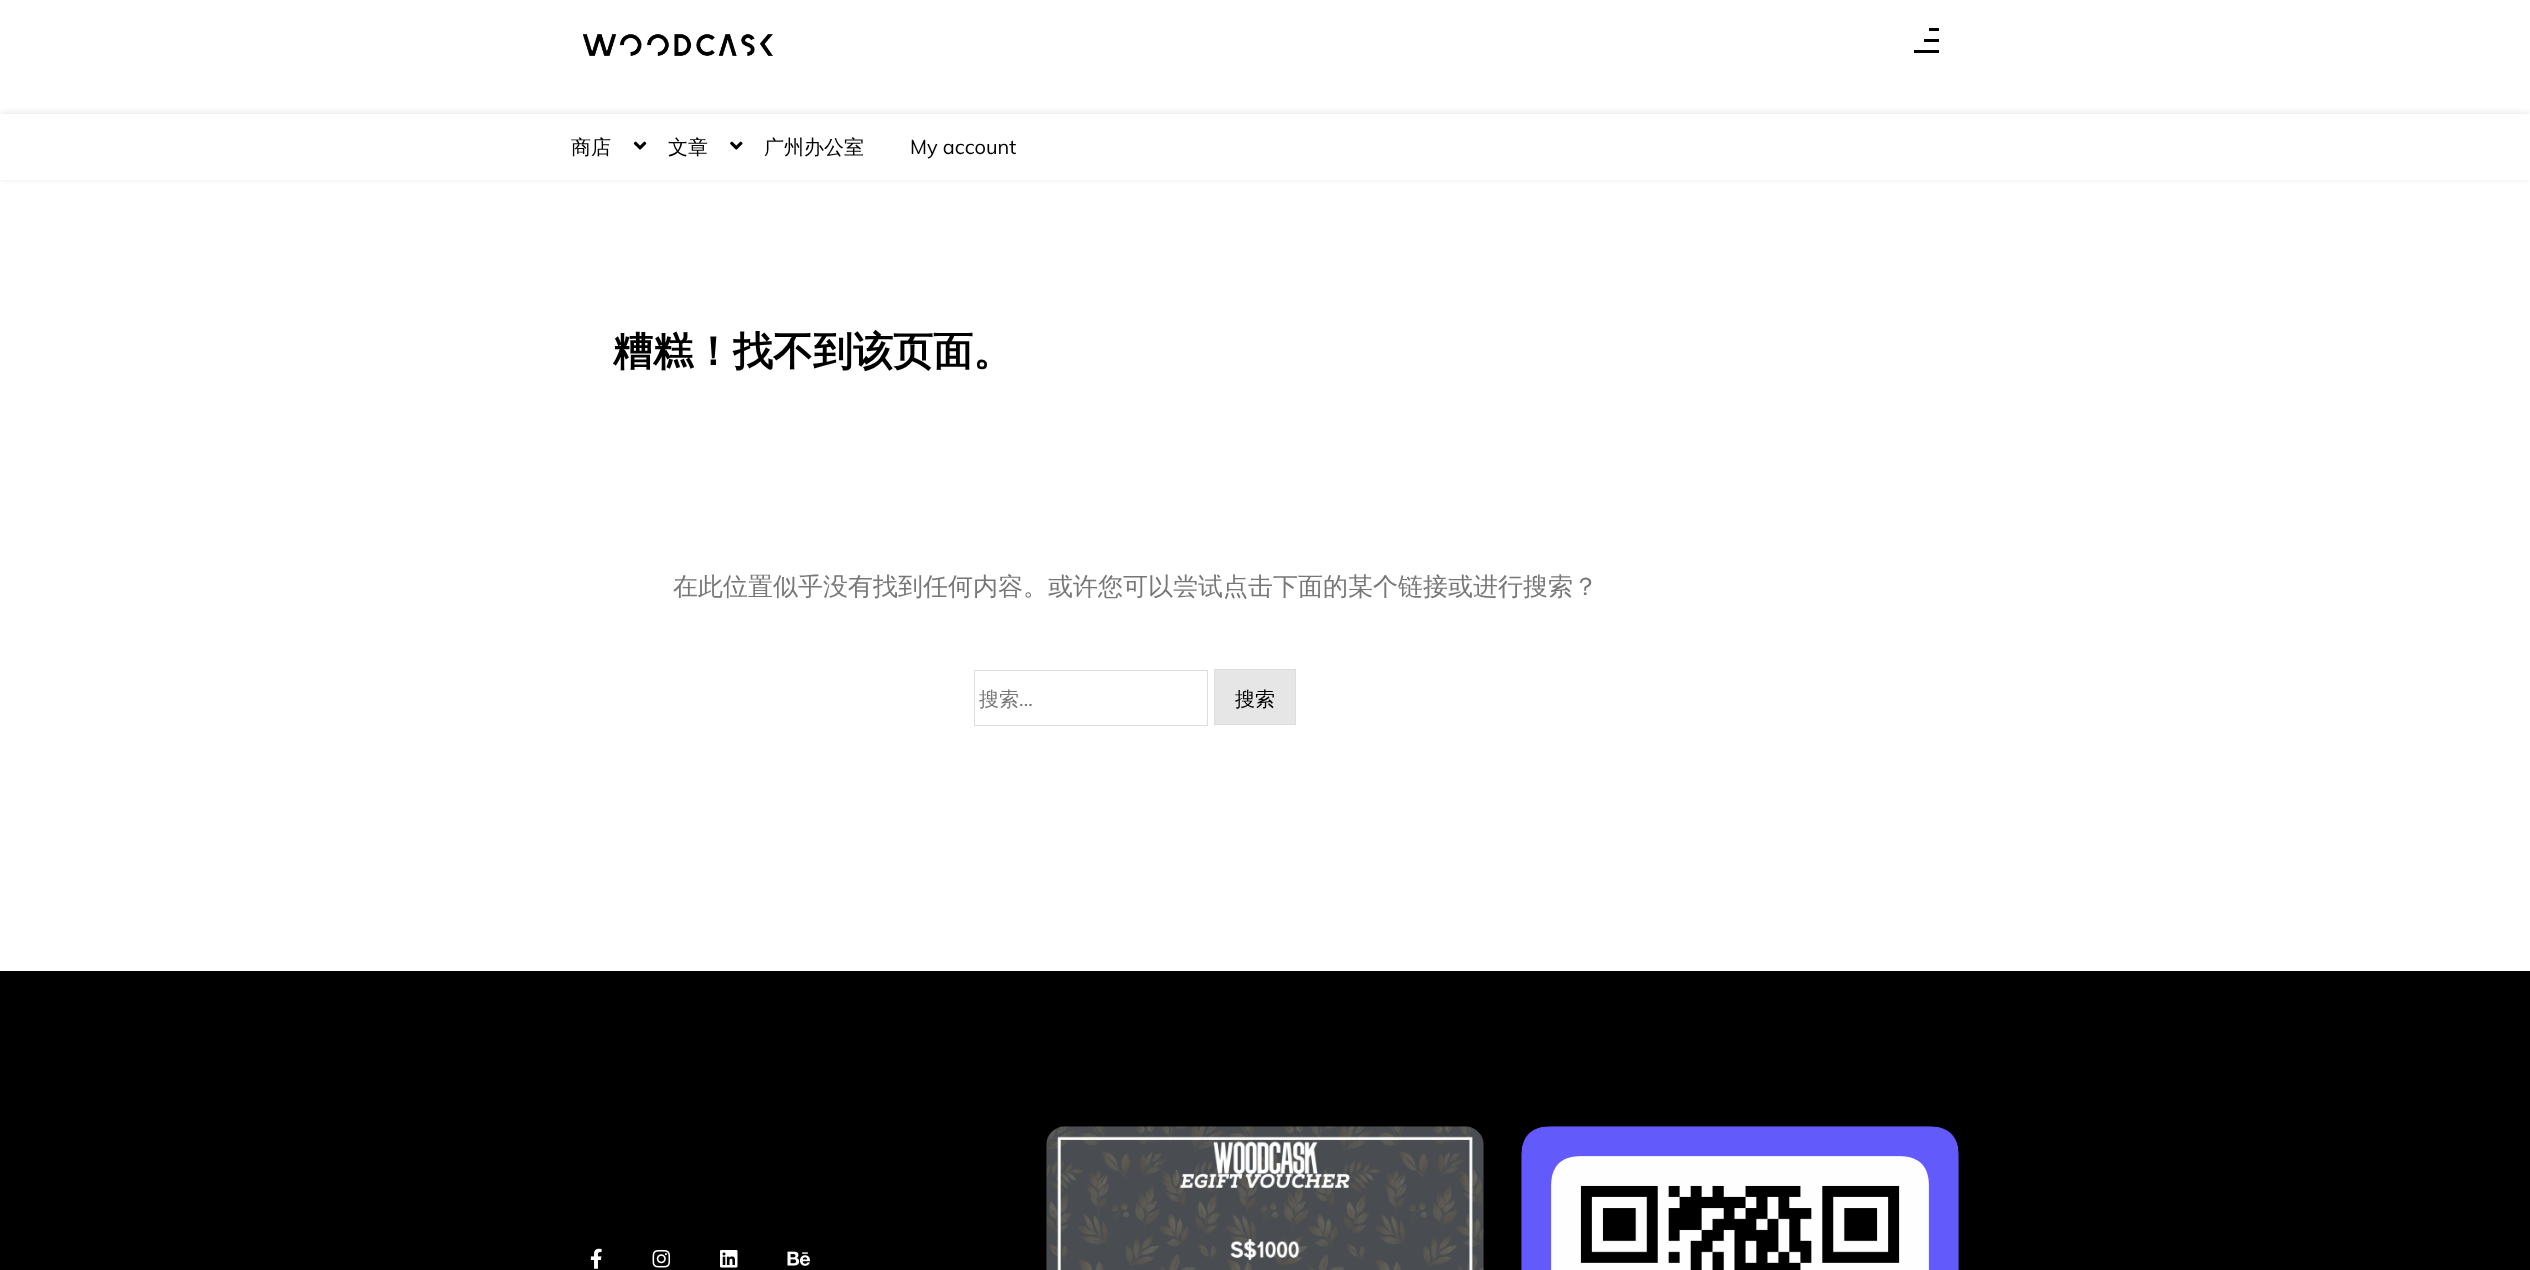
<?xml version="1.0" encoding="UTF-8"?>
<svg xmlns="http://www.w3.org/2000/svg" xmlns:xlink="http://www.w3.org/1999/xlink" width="2530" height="1270">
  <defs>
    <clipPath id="clip1"><path d="M 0 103 h 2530 v 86 h -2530 z m 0 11 h 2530 v 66 h -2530 z" clip-rule="evenodd" /></clipPath>
  </defs>
  <rect width="100%" height="100%" fill="#ffffff" />
  <image x="583" y="34" width="190" height="22" xlink:href="image1.png" />
  <rect x="1929" y="28" width="10" height="3" fill="#000000" />
  <rect x="1924" y="39" width="15" height="3" fill="#000000" />
  <rect x="1914" y="50" width="25" height="3" fill="#000000" />
  <g clip-path="url(#clip1)">
    <rect y="113" width="2530" height="66" fill="#0b0b0b" fill-opacity="0.1" filter="blur(3px)" />
  </g>
  <image x="633" y="141" width="14" height="9" xlink:href="image2.png" />
  <image x="730" y="141" width="13" height="9" xlink:href="image3.png" />
  <rect x="974.5" y="670.5" width="233" height="55" fill="none" stroke="#dddddd" />
  <rect x="1214.5" y="669.5" width="81" height="55" fill="#e6e6e6" stroke="#dddddd" />
  <rect y="971" width="2530" height="299" fill="#000000" />
  <image x="590" y="1248" width="12" height="21" xlink:href="image4.png" />
  <image x="652" y="1250" width="19" height="18" xlink:href="image5.png" />
  <image x="720" y="1250" width="18" height="18" xlink:href="image6.png" />
  <image x="787" y="1251" width="23" height="15" xlink:href="image7.png" />
  <image x="1046" y="1126" width="438" height="144" xlink:href="image8.png" />
  <image x="1521" y="1126" width="438" height="144" xlink:href="image9.png" />
  <text x="571" y="154" style="font-family: WenQuanYi Zen Hei; font-size: 20px; font-weight: 500; fill: #000000">商店</text>
  <text x="668" y="154" style="font-family: WenQuanYi Zen Hei; font-size: 20px; font-weight: 500; fill: #000000">文章</text>
  <text x="764" y="154" style="font-family: WenQuanYi Zen Hei; font-size: 20px; font-weight: 500; fill: #000000">广州办公室</text>
  <text x="910" y="154" style="font-family: Muli; font-size: 20px; fill: #000000">My account</text>
  <text x="613" y="365" style="font-family: WenQuanYi Zen Hei; font-size: 40px; font-weight: bold; fill: #000000">糟糕！找不到该页面。</text>
  <text x="673" y="595" style="font-family: WenQuanYi Zen Hei; font-size: 25px; font-weight: 500; fill: #777777">在此位置似乎没有找到任何内容。或许您可以尝试点击下面的某个链接或进行搜索？</text>
  <text x="979" y="706" style="font-family: WenQuanYi Zen Hei; font-size: 20px; font-weight: 500; fill: #777777">搜索</text>
  <text x="1019" y="706" style="font-family: Muli; font-size: 20px; fill: #777777">…</text>
  <text x="1235" y="706" style="font-family: WenQuanYi Zen Hei; font-size: 20px; font-weight: 500; fill: #000000">搜索</text>
</svg>
